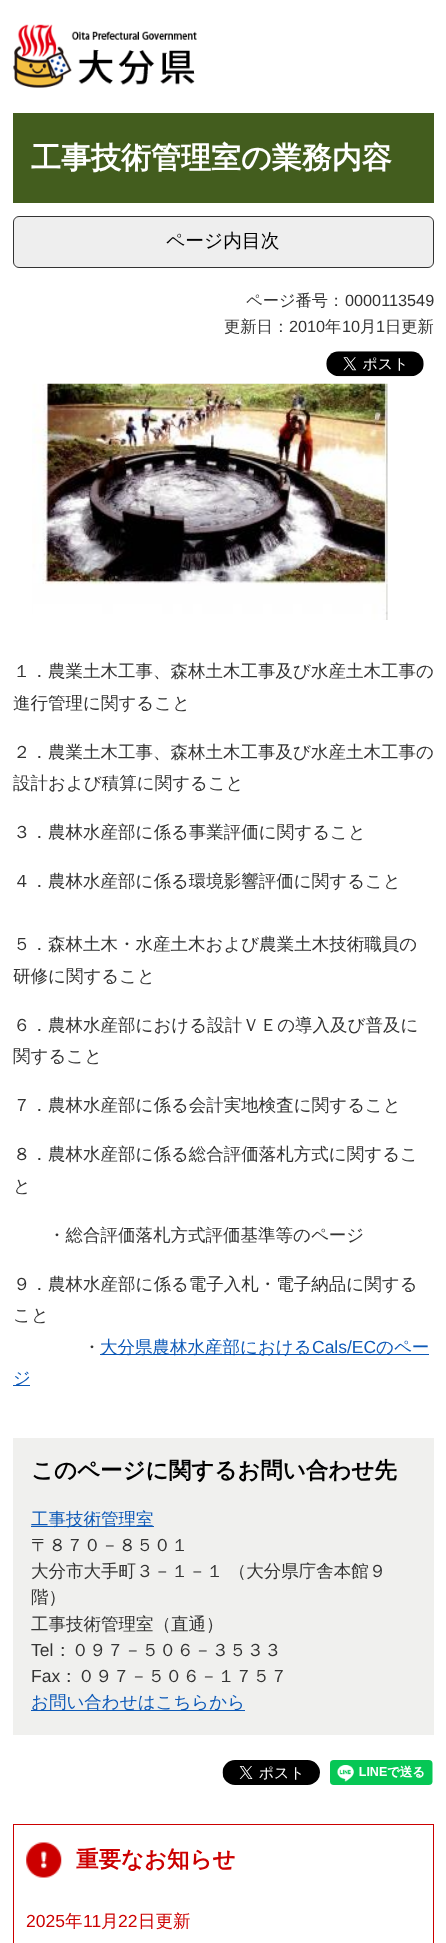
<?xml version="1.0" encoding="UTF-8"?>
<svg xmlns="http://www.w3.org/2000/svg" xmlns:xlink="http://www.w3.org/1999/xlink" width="446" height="1943">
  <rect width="100%" height="100%" fill="#ffffff" />
  <image x="13" y="24" width="184" height="64" xlink:href="image1.png" />
  <rect x="13" y="113" width="421" height="90" fill="#435d1e" />
  <rect x="13.5" y="216.5" width="420" height="51" rx="5.5" fill="#eeeeee" stroke="#333333" />
  <image x="326" y="351" width="98" height="26" xlink:href="image2.png" />
  <image x="32" y="383" width="356" height="237" xlink:href="image3.png" />
  <rect x="100" y="1354" width="329" height="1" fill="#0d59b7" />
  <rect x="13" y="1385" width="17" height="1" fill="#0d59b7" />
  <rect x="13" y="1438" width="421" height="297" fill="#f0f0ee" />
  <rect x="31" y="1526" width="123" height="1" fill="#0d59b7" />
  <rect x="31" y="1710" width="214" height="1" fill="#0d59b7" />
  <image x="222" y="1760" width="98" height="25" xlink:href="image4.png" />
  <image x="330" y="1760" width="103" height="25" xlink:href="image5.png" />
  <rect x="13.5" y="1824.5" width="420" height="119" fill="none" stroke="#cc0000" />
  <image x="26" y="1842" width="36" height="36" xlink:href="image6.png" />
  <text x="31" y="168" style="font-family: WenQuanYi Zen Hei; font-size: 30px; font-weight: bold; fill: #ffffff">工事技術管理室の業務内容</text>
  <text x="166" y="247" style="font-family: WenQuanYi Zen Hei; font-size: 18.75px; font-weight: 500; fill: #000000">ページ内目次</text>
  <text x="246" y="306" style="font-family: WenQuanYi Zen Hei; font-size: 16.25px; font-weight: 500; fill: #333333">ページ番号：</text>
  <text x="345" y="306" style="font-family: Liberation Sans; font-size: 16.25px; fill: #333333">0000113549</text>
  <text x="224" y="332" style="font-family: WenQuanYi Zen Hei; font-size: 16.25px; font-weight: 500; fill: #333333">更新日：</text>
  <text x="289" y="332" style="font-family: Liberation Sans; font-size: 16.25px; fill: #333333">2010</text>
  <text x="325" y="332" style="font-family: WenQuanYi Zen Hei; font-size: 16.25px; font-weight: 500; fill: #333333">年</text>
  <text x="342" y="332" style="font-family: Liberation Sans; font-size: 16.25px; fill: #333333">10</text>
  <text x="360" y="332" style="font-family: WenQuanYi Zen Hei; font-size: 16.25px; font-weight: 500; fill: #333333">月</text>
  <text x="376" y="332" style="font-family: Liberation Sans; font-size: 16.25px; fill: #333333">1</text>
  <text x="385" y="332" style="font-family: WenQuanYi Zen Hei; font-size: 16.25px; font-weight: 500; fill: #333333">日更新</text>
  <text x="13" y="677" style="font-family: WenQuanYi Zen Hei; font-size: 17.5px; font-weight: 500; fill: #333333">１．農業土木工事、森林土木工事及び水産土木工事の</text>
  <text x="13" y="709" style="font-family: WenQuanYi Zen Hei; font-size: 17.5px; font-weight: 500; fill: #333333">進行管理に関すること</text>
  <text x="13" y="758" style="font-family: WenQuanYi Zen Hei; font-size: 17.5px; font-weight: 500; fill: #333333">２．農業土木工事、森林土木工事及び水産土木工事の</text>
  <text x="13" y="789" style="font-family: WenQuanYi Zen Hei; font-size: 17.5px; font-weight: 500; fill: #333333">設計および積算に関すること</text>
  <text x="13" y="838" style="font-family: WenQuanYi Zen Hei; font-size: 17.5px; font-weight: 500; fill: #333333">３．農林水産部に係る事業評価に関すること</text>
  <text x="13" y="887" style="font-family: WenQuanYi Zen Hei; font-size: 17.5px; font-weight: 500; fill: #333333">４．農林水産部に係る環境影響評価に関すること</text>
  <text x="13" y="950" style="font-family: WenQuanYi Zen Hei; font-size: 17.5px; font-weight: 500; fill: #333333">５．森林土木・水産土木および農業土木技術職員の</text>
  <text x="13" y="982" style="font-family: WenQuanYi Zen Hei; font-size: 17.5px; font-weight: 500; fill: #333333">研修に関すること</text>
  <text x="13" y="1031" style="font-family: WenQuanYi Zen Hei; font-size: 17.5px; font-weight: 500; fill: #333333">６．農林水産部における設計ＶＥの導入及び普及に</text>
  <text x="13" y="1062" style="font-family: WenQuanYi Zen Hei; font-size: 17.5px; font-weight: 500; fill: #333333">関すること</text>
  <text x="13" y="1111" style="font-family: WenQuanYi Zen Hei; font-size: 17.5px; font-weight: 500; fill: #333333">７．農林水産部に係る会計実地検査に関すること</text>
  <text x="13" y="1160" style="font-family: WenQuanYi Zen Hei; font-size: 17.5px; font-weight: 500; fill: #333333">８．農林水産部に係る総合評価落札方式に関するこ</text>
  <text x="13" y="1192" style="font-family: WenQuanYi Zen Hei; font-size: 17.5px; font-weight: 500; fill: #333333">と</text>
  <text x="48" y="1241" style="font-family: WenQuanYi Zen Hei; font-size: 17.5px; font-weight: 500; fill: #333333">・総合評価落札方式評価基準等のページ</text>
  <text x="13" y="1290" style="font-family: WenQuanYi Zen Hei; font-size: 17.5px; font-weight: 500; fill: #333333">９．農林水産部に係る電子入札・電子納品に関する</text>
  <text x="13" y="1321" style="font-family: WenQuanYi Zen Hei; font-size: 17.5px; font-weight: 500; fill: #333333">こと</text>
  <text x="83" y="1353" style="font-family: WenQuanYi Zen Hei; font-size: 17.5px; font-weight: 500; fill: #333333">・</text>
  <text x="100" y="1353" style="font-family: WenQuanYi Zen Hei; font-size: 17.5px; font-weight: 500; fill: #0d59b7">大分県農林水産部における</text>
  <text x="312" y="1353" style="font-family: Liberation Sans; font-size: 17.5px; fill: #0d59b7">Cals/EC</text>
  <text x="376" y="1353" style="font-family: WenQuanYi Zen Hei; font-size: 17.5px; font-weight: 500; fill: #0d59b7">のペー</text>
  <text x="13" y="1384" style="font-family: WenQuanYi Zen Hei; font-size: 17.5px; font-weight: 500; fill: #0d59b7">ジ</text>
  <text x="31" y="1478" style="font-family: WenQuanYi Zen Hei; font-size: 22.5px; font-weight: bold; fill: #000000">このページに関するお問い合わせ先</text>
  <text x="31" y="1525" style="font-family: WenQuanYi Zen Hei; font-size: 17.5px; font-weight: 500; fill: #0d59b7">工事技術管理室</text>
  <text x="31" y="1551" style="font-family: WenQuanYi Zen Hei; font-size: 17.5px; font-weight: 500; fill: #333333">〒８７０－８５０１</text>
  <text x="31" y="1577" style="font-family: WenQuanYi Zen Hei; font-size: 17.5px; font-weight: 500; fill: #333333">大分市大手町３－１－１ （大分県庁舎本館９</text>
  <text x="31" y="1603" style="font-family: WenQuanYi Zen Hei; font-size: 17.5px; font-weight: 500; fill: #333333">階）</text>
  <text x="31" y="1630" style="font-family: WenQuanYi Zen Hei; font-size: 17.5px; font-weight: 500; fill: #333333">工事技術管理室（直通）</text>
  <text x="31" y="1656" style="font-family: Liberation Sans; font-size: 17.5px; fill: #333333">Tel</text>
  <text x="54" y="1656" style="font-family: WenQuanYi Zen Hei; font-size: 17.5px; font-weight: 500; fill: #333333">：０９７－５０６－３５３３</text>
  <text x="31" y="1682" style="font-family: Liberation Sans; font-size: 17.5px; fill: #333333">Fax</text>
  <text x="60" y="1682" style="font-family: WenQuanYi Zen Hei; font-size: 17.5px; font-weight: 500; fill: #333333">：０９７－５０６－１７５７</text>
  <text x="31" y="1708" style="font-family: WenQuanYi Zen Hei; font-size: 17.5px; font-weight: 500; fill: #0d59b7">お問い合わせはこちらから</text>
  <text x="76" y="1867" style="font-family: WenQuanYi Zen Hei; font-size: 22.5px; font-weight: bold; fill: #cc0000">重要なお知らせ</text>
  <text x="26" y="1927" style="font-family: Liberation Sans; font-size: 17.5px; fill: #cc0000">2025</text>
  <text x="65" y="1927" style="font-family: WenQuanYi Zen Hei; font-size: 17.5px; font-weight: 500; fill: #cc0000">年</text>
  <text x="83" y="1927" style="font-family: Liberation Sans; font-size: 17.5px; fill: #cc0000">11</text>
  <text x="101" y="1927" style="font-family: WenQuanYi Zen Hei; font-size: 17.5px; font-weight: 500; fill: #cc0000">月</text>
  <text x="118" y="1927" style="font-family: Liberation Sans; font-size: 17.5px; fill: #cc0000">22</text>
  <text x="138" y="1927" style="font-family: WenQuanYi Zen Hei; font-size: 17.5px; font-weight: 500; fill: #cc0000">日更新</text>
</svg>
